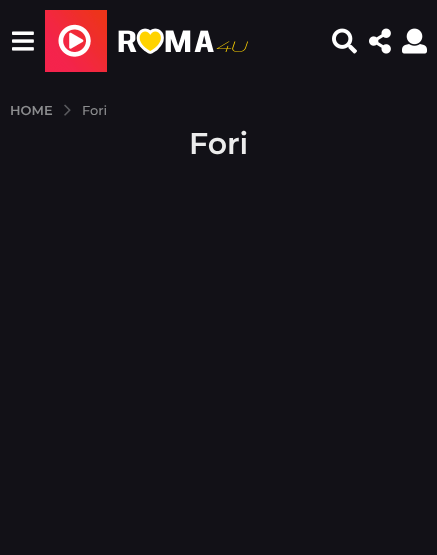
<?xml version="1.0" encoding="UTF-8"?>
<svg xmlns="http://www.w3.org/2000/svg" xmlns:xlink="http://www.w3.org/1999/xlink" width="437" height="555">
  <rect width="100%" height="100%" fill="#121117" />
  <image x="12" y="31" width="22" height="20" xlink:href="image1.png" />
  <image x="45" y="10" width="203" height="62" xlink:href="image2.png" />
  <image x="332" y="28" width="25" height="26" xlink:href="image3.png" />
  <image x="369" y="28" width="22" height="26" xlink:href="image4.png" />
  <image x="402" y="28" width="25" height="26" xlink:href="image5.png" />
  <image x="64" y="104" width="7" height="12" xlink:href="image6.png" />
  <text x="10" y="115" style="font-family: Montserrat; font-size: 13px; font-weight: 600; fill: #8c8d8f">HOME</text>
  <text x="82" y="115" style="font-family: Montserrat; font-size: 13px; font-weight: 500; fill: #8c8d8f">Fori</text>
  <text x="189" y="154" style="font-family: Montserrat; font-size: 30px; font-weight: 600; fill: #ececec">Fori</text>
</svg>
